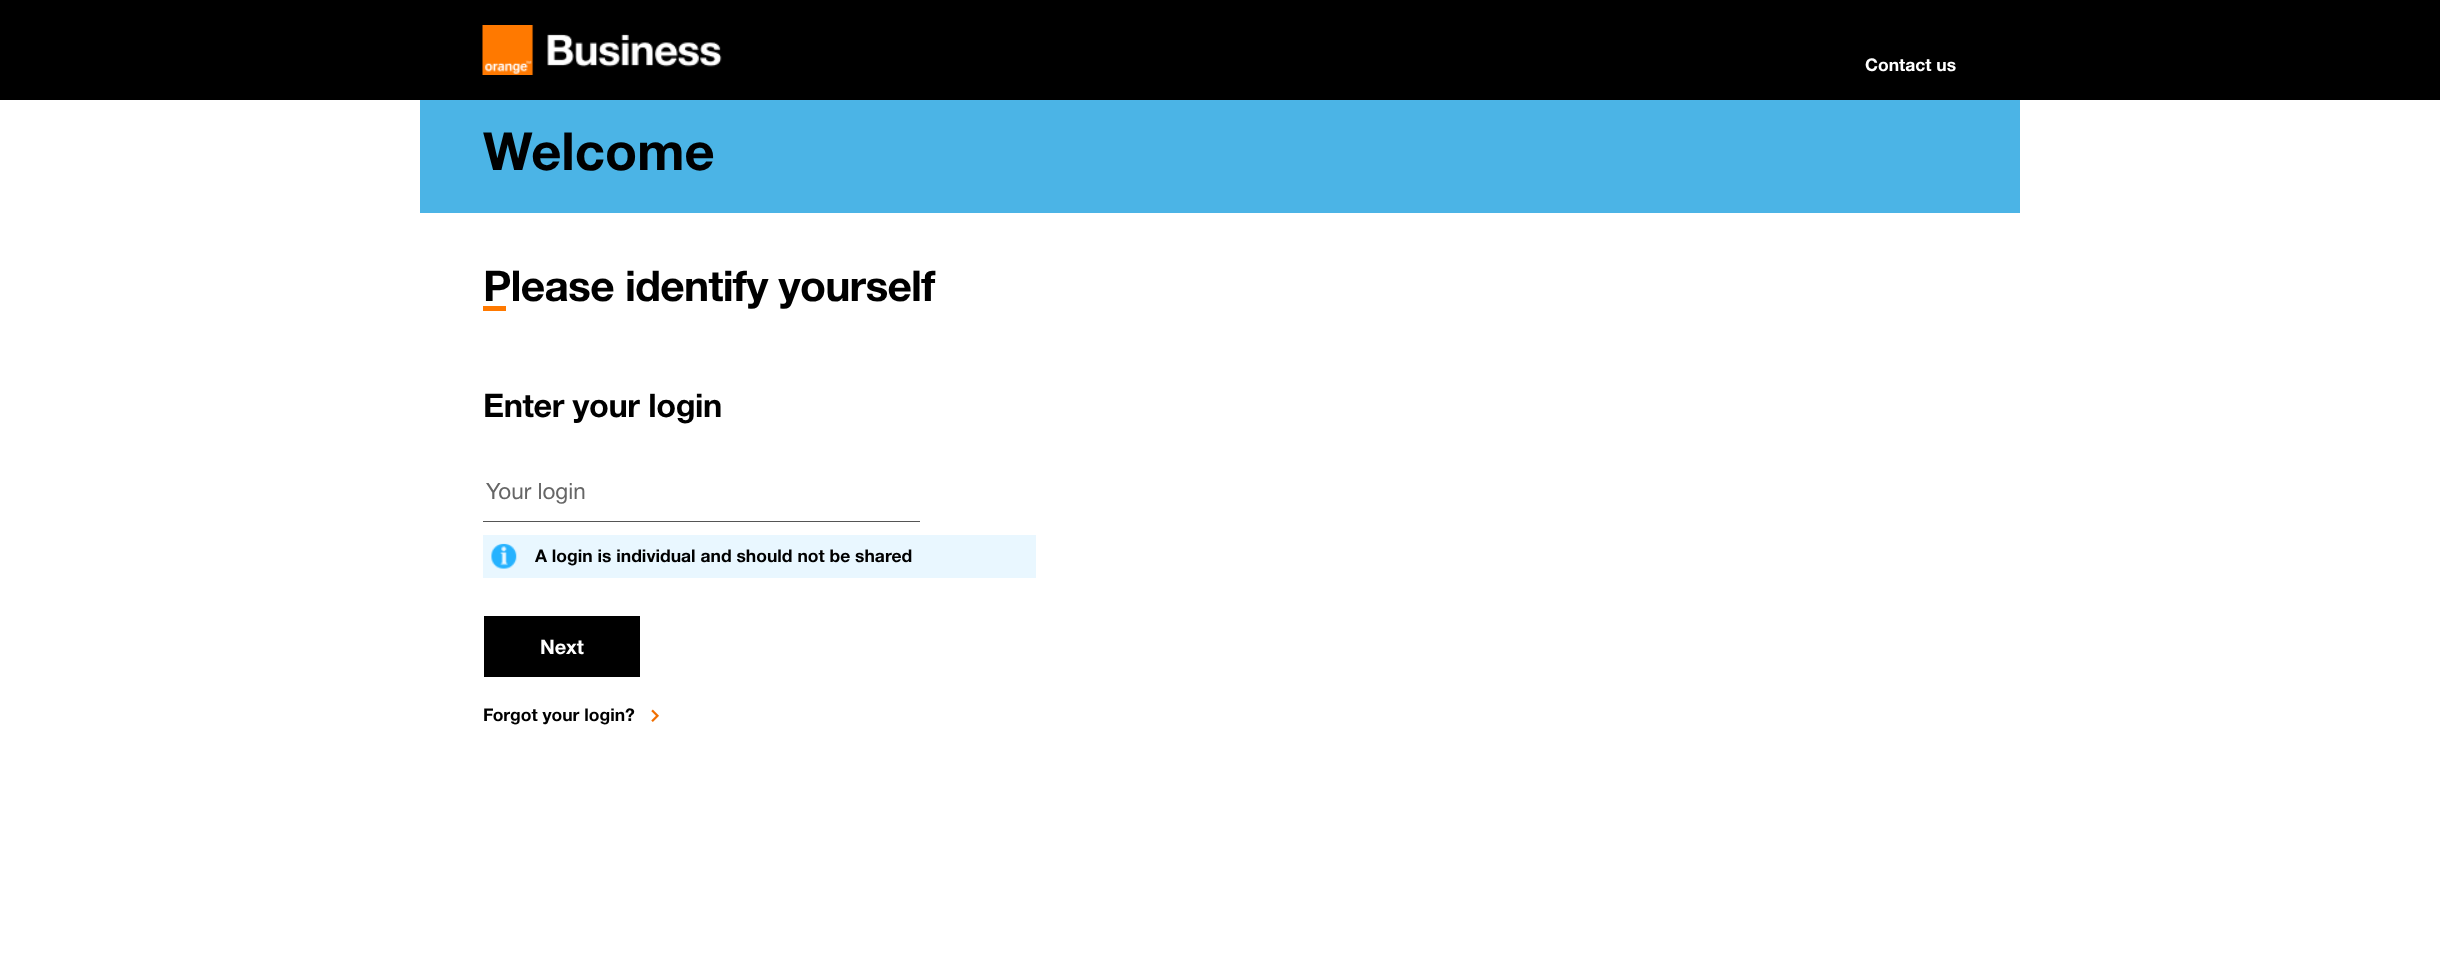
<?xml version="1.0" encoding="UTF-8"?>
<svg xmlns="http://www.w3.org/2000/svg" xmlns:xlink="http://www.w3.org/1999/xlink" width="2440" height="961">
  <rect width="100%" height="100%" fill="#ffffff" />
  <rect width="2440" height="100" fill="#000000" />
  <image x="482" y="25" width="240" height="50" xlink:href="image1.png" />
  <rect x="420" y="100" width="1600" height="113" fill="#4bb4e6" />
  <rect x="483" y="521" width="437" height="1" fill="#555555" />
  <rect x="483" y="535" width="553" height="43" fill="#e9f7ff" />
  <image x="491" y="543" width="26" height="26" xlink:href="image2.png" />
  <rect x="484" y="616" width="156" height="61" fill="#000000" />
  <image x="651" y="709" width="8" height="13" xlink:href="image3.png" />
  <text x="1865" y="71" style="font-family: Helvetica Neue; font-size: 17.5px; font-weight: bold; fill: #ffffff">Contact us</text>
  <text x="483" y="170" style="font-family: Helvetica Neue; font-size: 52.5px; font-weight: bold; fill: #000000">Welcome</text>
  <text x="483" y="301" style="font-family: Helvetica Neue; font-size: 42.5px; font-weight: bold; letter-spacing: -0.75px; fill: #000000">Please identify yourself</text>
  <rect x="483" y="306" width="23" height="5" fill="#ff7900" />
  <text x="483" y="417" style="font-family: Helvetica Neue; font-size: 32.5px; font-weight: bold; letter-spacing: -0.4px; fill: #000000">Enter your login</text>
  <text x="486" y="499" style="font-family: Helvetica Neue; font-size: 22.5px; fill: #666666">Your login</text>
  <text x="535" y="562" style="font-family: Helvetica Neue; font-size: 17.5px; font-weight: bold; fill: #000000">A login is individual and should not be shared</text>
  <text x="540" y="654" style="font-family: Helvetica Neue; font-size: 20px; font-weight: bold; fill: #ffffff">Next</text>
  <text x="483" y="721" style="font-family: Helvetica Neue; font-size: 17.5px; font-weight: bold; fill: #000000">Forgot your login?</text>
</svg>
